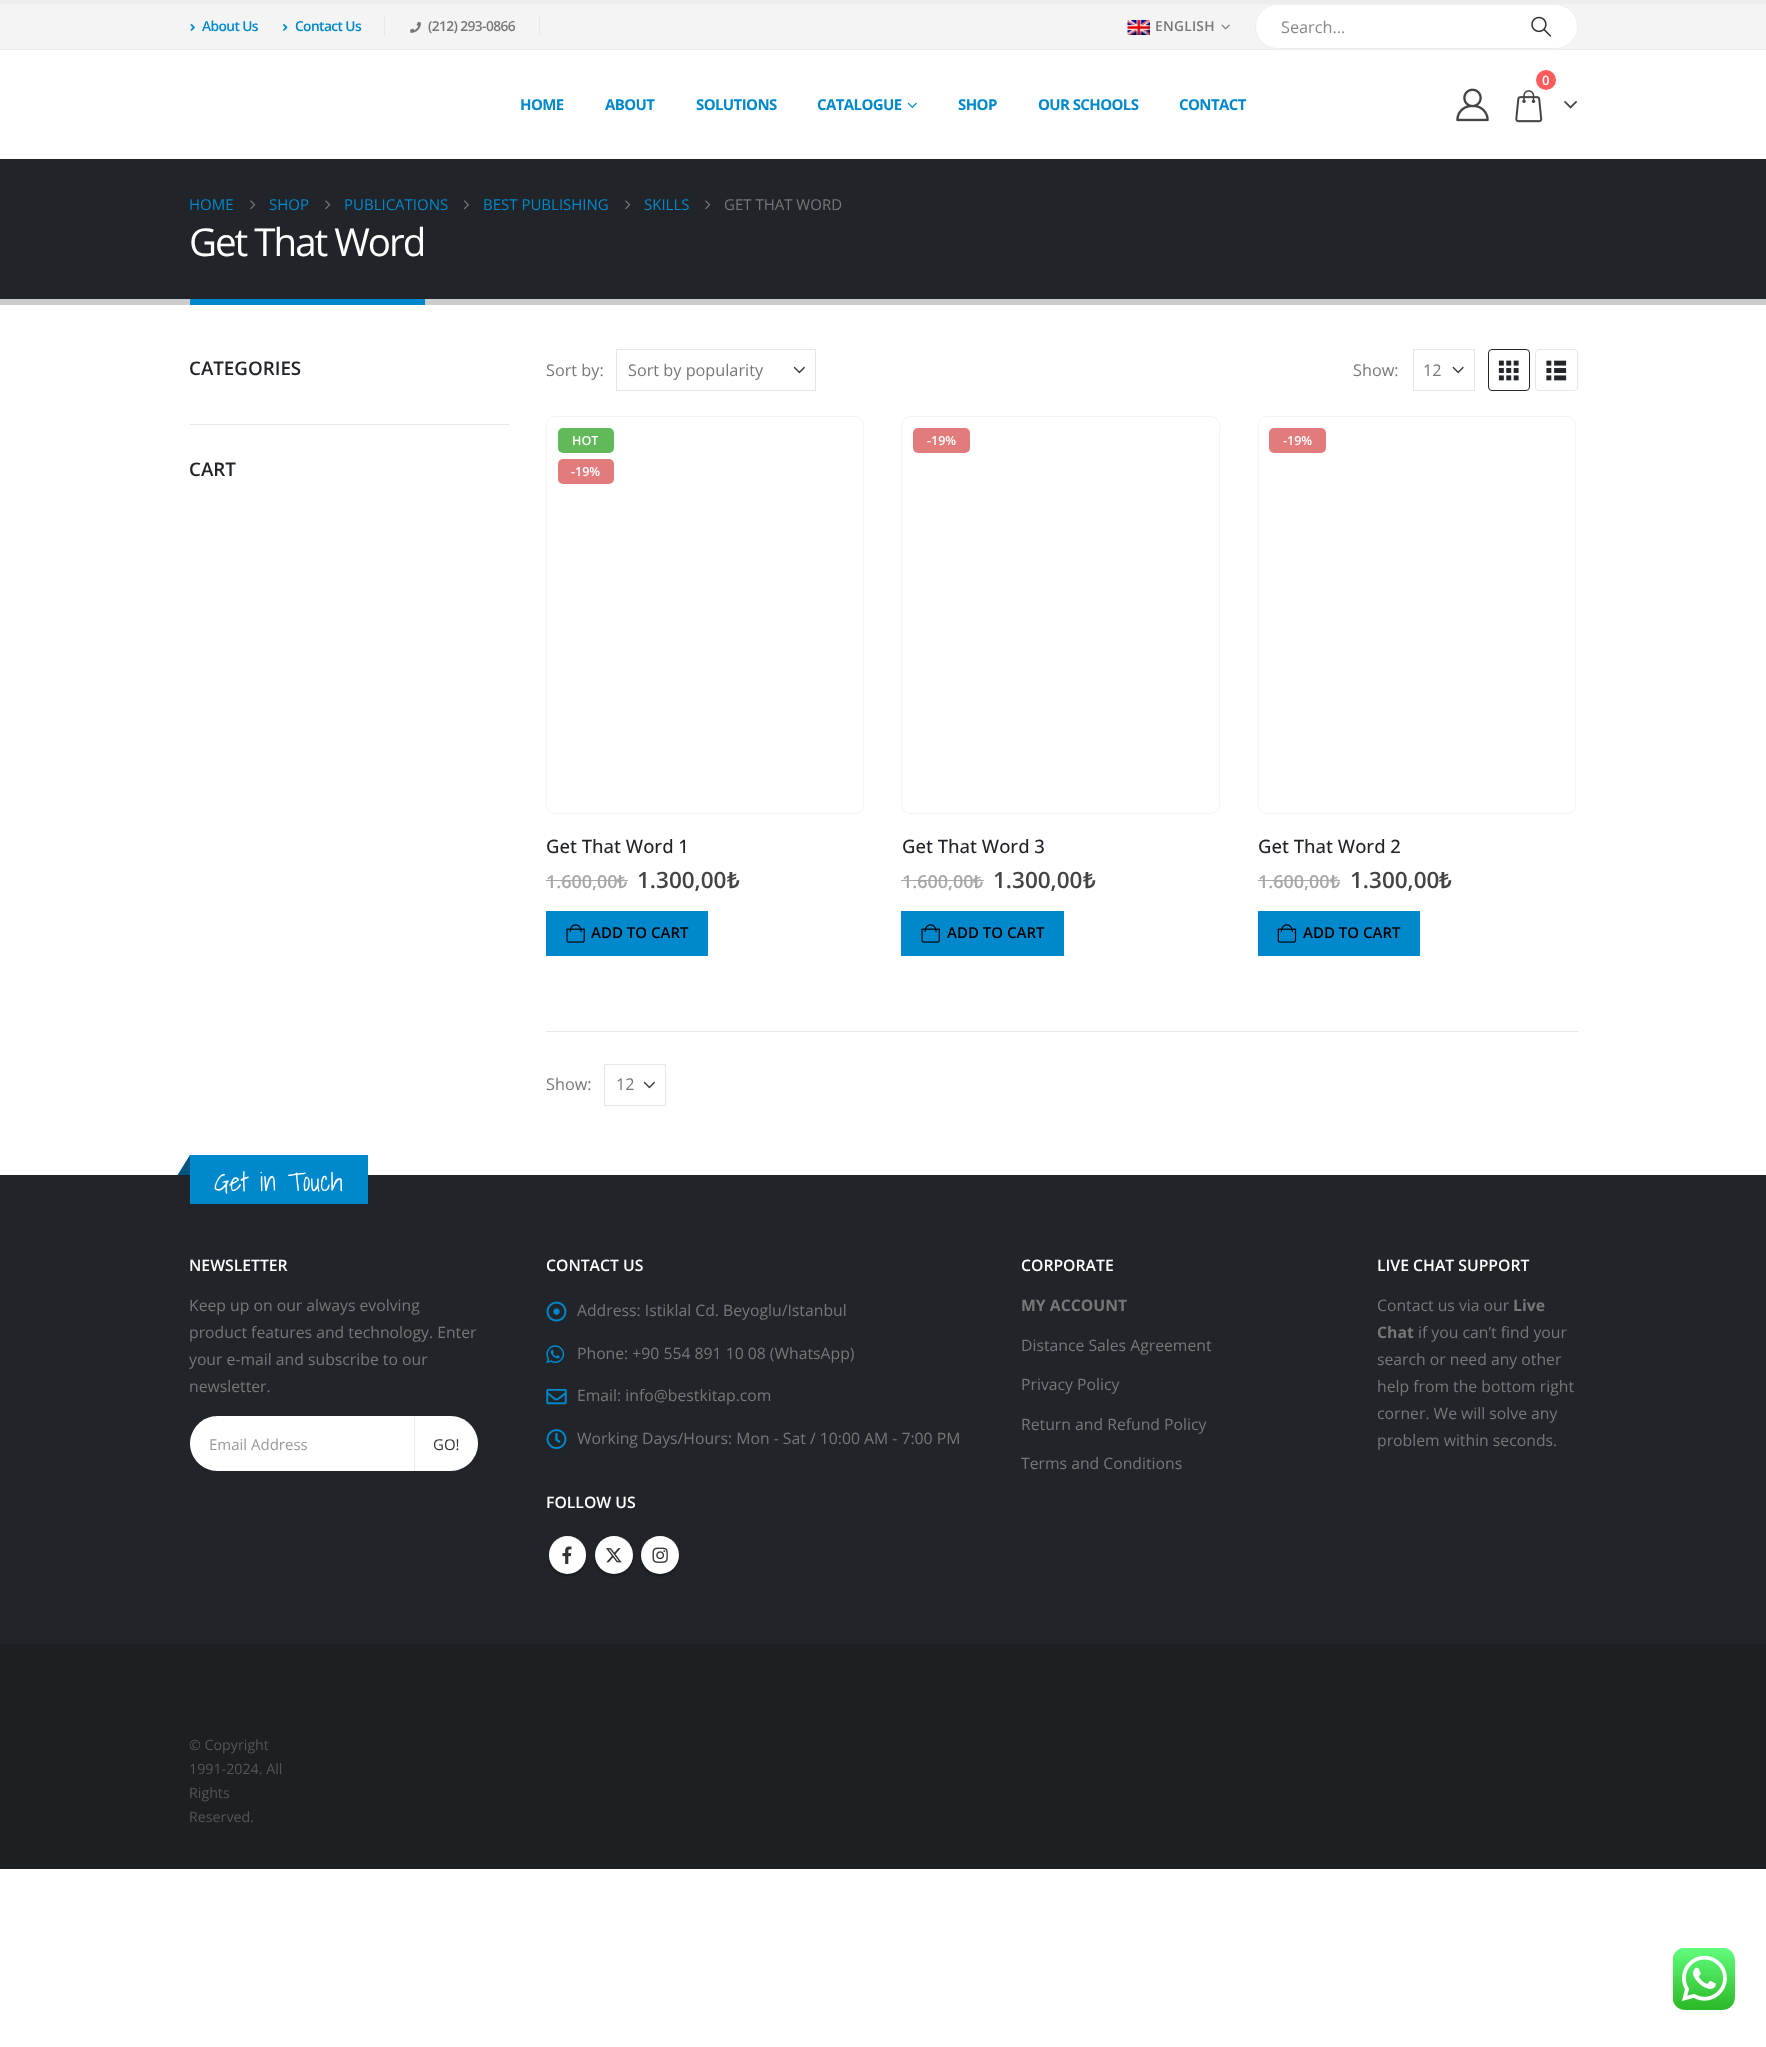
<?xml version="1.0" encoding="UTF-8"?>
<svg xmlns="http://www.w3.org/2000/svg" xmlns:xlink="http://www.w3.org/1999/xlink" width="1766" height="2047">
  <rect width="100%" height="100%" fill="#ffffff" />
  <rect width="1766" height="4" fill="#ededed" />
  <rect y="4" width="1766" height="45" fill="#f4f4f4" />
  <rect y="49" width="1766" height="1" fill="#ededed" />
  <image x="190" y="24" width="5" height="7" xlink:href="image1.png" />
  <image x="283" y="24" width="5" height="7" xlink:href="image2.png" />
  <rect x="384" y="16" width="1" height="20" fill="#e8e8e8" />
  <image x="410" y="21" width="11" height="12" xlink:href="image3.png" />
  <rect x="539" y="16" width="1" height="20" fill="#e8e8e8" />
  <image x="1127" y="20" width="23" height="15" xlink:href="image4.png" />
  <image x="1221" y="24" width="9" height="6" xlink:href="image5.png" />
  <rect x="1255.5" y="4.5" width="322" height="44" rx="22" fill="#ffffff" stroke="#eeeeee" />
  <image x="1531" y="16" width="21" height="21" xlink:href="image6.png" />
  <circle cx="1546" cy="80" r="10" fill="#ff5b5b" />
  <image x="1515" y="90" width="28" height="33" xlink:href="image7.png" />
  <image x="1564" y="100" width="13" height="9" xlink:href="image8.png" />
  <image x="1456" y="88" width="33" height="34" xlink:href="image9.png" />
  <image x="907" y="102" width="10" height="6" xlink:href="image10.png" />
  <rect y="159" width="1766" height="140" fill="#212529" />
  <rect y="299" width="1766" height="6" fill="#cccccc" />
  <image x="250" y="200" width="6" height="10" xlink:href="image11.png" />
  <image x="325" y="200" width="6" height="10" xlink:href="image11.png" />
  <image x="463" y="200" width="6" height="10" xlink:href="image12.png" />
  <image x="625" y="200" width="6" height="10" xlink:href="image11.png" />
  <image x="705" y="200" width="6" height="10" xlink:href="image11.png" />
  <rect x="190" y="299" width="235" height="6" fill="#0088cc" />
  <rect x="190" y="424" width="319" height="1" fill="#e7e7e7" />
  <image x="793" y="366" width="12" height="8" xlink:href="image13.png" />
  <rect x="616.5" y="349.5" width="199" height="41" fill="none" stroke="#e7e7e7" />
  <image x="1452" y="366" width="12" height="8" xlink:href="image14.png" />
  <rect x="1413.5" y="349.5" width="61" height="41" fill="none" stroke="#e7e7e7" />
  <rect x="1488.5" y="349.5" width="41" height="41" rx="3.5" fill="none" stroke="#222529" />
  <image x="1498" y="360" width="21" height="21" xlink:href="image15.png" />
  <rect x="1535.5" y="349.5" width="42" height="41" rx="3.5" fill="none" stroke="#e7e7e7" />
  <image x="1546" y="360" width="21" height="21" xlink:href="image16.png" />
  <rect x="546.5" y="416.5" width="317" height="397" rx="8.5" fill="none" stroke="#f4f4f4" />
  <rect x="558" y="428" width="56" height="25" rx="5" fill="#62b959" />
  <rect x="558" y="459" width="56" height="25" rx="5" fill="#e27c7c" />
  <rect x="546" y="880" width="72" height="1" fill="#a7a7a7" />
  <rect x="618" y="880" width="10" height="1" fill="#a7a7a7" />
  <rect x="546" y="911" width="162" height="45" fill="#0088cc" />
  <image x="566" y="924" width="19" height="19" xlink:href="image17.png" />
  <rect x="901.5" y="416.5" width="318" height="397" rx="8.5" fill="none" stroke="#f4f4f4" />
  <rect x="913" y="428" width="57" height="25" rx="5" fill="#e27c7c" />
  <rect x="901" y="880" width="73" height="1" fill="#a7a7a7" />
  <rect x="974" y="880" width="10" height="1" fill="#a7a7a7" />
  <rect x="901" y="911" width="163" height="45" fill="#0088cc" />
  <image x="921" y="924" width="19" height="19" xlink:href="image17.png" />
  <rect x="1258.5" y="416.5" width="317" height="397" rx="8.5" fill="none" stroke="#f4f4f4" />
  <rect x="1269" y="428" width="57" height="25" rx="5" fill="#e27c7c" />
  <rect x="1258" y="880" width="72" height="1" fill="#a7a7a7" />
  <rect x="1330" y="880" width="10" height="1" fill="#a7a7a7" />
  <rect x="1258" y="911" width="162" height="45" fill="#0088cc" />
  <image x="1277" y="924" width="20" height="19" xlink:href="image18.png" />
  <rect x="546" y="1031" width="1032" height="1" fill="#e7e7e7" />
  <image x="643" y="1081" width="12" height="8" xlink:href="image13.png" />
  <rect x="604.5" y="1064.5" width="61" height="41" fill="none" stroke="#e7e7e7" />
  <rect y="1175" width="1766" height="469" fill="#212529" />
  <rect x="190" y="1155" width="178" height="49" fill="#0088cc" />
  <path d="M 190 1155 v 20 h -12.5 z" fill="#005580" />
  <path d="M 414 1416 h 36.5 c 15 0 27.5 12.5 27.5 27.5 c 0 15 -12.5 27.5 -27.5 27.5 h -36.5 z" fill="#ffffff" />
  <path d="M 217.5 1416 h 197.5 v 55 h -197.5 c -15 0 -27.5 -12.5 -27.5 -27.5 c 0 -15 12.5 -27.5 27.5 -27.5 z" fill="#ffffff" />
  <rect x="414" y="1416" width="1" height="55" fill="#ebebeb" />
  <image x="546" y="1301" width="21" height="21" xlink:href="image19.png" />
  <image x="546" y="1345" width="19" height="19" xlink:href="image20.png" />
  <image x="546" y="1388" width="21" height="17" xlink:href="image21.png" />
  <image x="546" y="1429" width="21" height="20" xlink:href="image22.png" />
  <rect x="549" y="1539" width="37" height="37" rx="18.5" fill="#000000" fill-opacity="0.3" filter="blur(1px)" />
  <rect x="549" y="1536" width="37" height="38" rx="18.5" fill="#ffffff" />
  <image x="562" y="1546" width="10" height="18" xlink:href="image23.png" />
  <rect x="595" y="1539" width="38" height="37" rx="18.5" fill="#000000" fill-opacity="0.3" filter="blur(1px)" />
  <circle cx="614" cy="1555" r="19" fill="#ffffff" />
  <image x="606" y="1548" width="16" height="15" xlink:href="image24.png" />
  <rect x="641" y="1539" width="38" height="37" rx="18.5" fill="#000000" fill-opacity="0.3" filter="blur(1px)" />
  <circle cx="660" cy="1555" r="19" fill="#ffffff" />
  <image x="652" y="1547" width="16" height="16" xlink:href="image25.png" />
  <rect y="1644" width="1766" height="225" fill="#1c2023" />
  <image x="1673" y="1948" width="62" height="62" xlink:href="image26.png" />
  <text x="202" y="31" style="font-family: Open Sans; font-size: 13.75px; font-weight: 600; letter-spacing: -0.6px; fill: #0088cc">About Us</text>
  <text x="295" y="31" style="font-family: Open Sans; font-size: 13.75px; font-weight: 600; letter-spacing: -0.6px; fill: #0088cc">Contact Us</text>
  <text x="428" y="31" style="font-family: Open Sans; font-size: 13.75px; font-weight: 600; letter-spacing: -0.6px; fill: #777777">(212) 293-0866</text>
  <text x="1155" y="31" style="font-family: Open Sans; font-size: 13.75px; font-weight: 600; letter-spacing: 0.25px; fill: #777777">ENGLISH</text>
  <text x="1281" y="33" style="font-family: Open Sans; font-size: 16.25px; fill: #888888">Search…</text>
  <text x="1542" y="85" style="font-family: Open Sans; font-size: 13px; font-weight: 600; fill: #ffffff">0</text>
  <text x="520" y="110" style="font-family: Open Sans; font-size: 15px; font-weight: bold; letter-spacing: -0.6px; fill: #0088cc">HOME</text>
  <text x="605" y="110" style="font-family: Open Sans; font-size: 15px; font-weight: bold; letter-spacing: -0.6px; fill: #0088cc">ABOUT</text>
  <text x="696" y="110" style="font-family: Open Sans; font-size: 15px; font-weight: bold; letter-spacing: -0.6px; fill: #0088cc">SOLUTIONS</text>
  <text x="817" y="110" style="font-family: Open Sans; font-size: 15px; font-weight: bold; letter-spacing: -0.6px; fill: #0088cc">CATALOGUE</text>
  <text x="958" y="110" style="font-family: Open Sans; font-size: 15px; font-weight: bold; letter-spacing: -0.6px; fill: #0088cc">SHOP</text>
  <text x="1038" y="110" style="font-family: Open Sans; font-size: 15px; font-weight: bold; letter-spacing: -0.6px; fill: #0088cc">OUR SCHOOLS</text>
  <text x="1179" y="110" style="font-family: Open Sans; font-size: 15px; font-weight: bold; letter-spacing: -0.6px; fill: #0088cc">CONTACT</text>
  <text x="189" y="210" style="font-family: Open Sans; font-size: 15px; fill: #0088cc">HOME</text>
  <text x="269" y="210" style="font-family: Open Sans; font-size: 15px; fill: #0088cc">SHOP</text>
  <text x="344" y="210" style="font-family: Open Sans; font-size: 15px; fill: #0088cc">PUBLICATIONS</text>
  <text x="483" y="210" style="font-family: Open Sans; font-size: 15px; fill: #0088cc">BEST PUBLISHING</text>
  <text x="644" y="210" style="font-family: Open Sans; font-size: 15px; fill: #0088cc">SKILLS</text>
  <text x="724" y="210" style="font-family: Open Sans; font-size: 15px; fill: #777777">GET THAT WORD</text>
  <text x="189" y="256" style="font-family: Open Sans; font-size: 38.5px; letter-spacing: -2px; fill: #ffffff">Get That Word</text>
  <text x="189" y="375" style="font-family: Open Sans; font-size: 18.75px; font-weight: 600; fill: #212529">CATEGORIES</text>
  <text x="189" y="476" style="font-family: Open Sans; font-size: 18.75px; font-weight: 600; fill: #212529">CART</text>
  <text x="546" y="376" style="font-family: Open Sans; font-size: 16.25px; fill: #777777">Sort by:</text>
  <text x="628" y="376" style="font-family: Open Sans; font-size: 16.25px; fill: #777777">Sort by popularity</text>
  <text x="1353" y="376" style="font-family: Open Sans; font-size: 16.25px; fill: #777777">Show:</text>
  <text x="1423" y="376" style="font-family: Open Sans; font-size: 16.25px; fill: #777777">12</text>
  <text x="572" y="445" style="font-family: Open Sans; font-size: 12.5px; font-weight: 600; fill: #ffffff">HOT</text>
  <text x="571" y="476" style="font-family: Open Sans; font-size: 12.5px; font-weight: 600; fill: #ffffff">-19%</text>
  <text x="546" y="853" style="font-family: Open Sans; font-size: 18.5px; font-weight: 500; fill: #212529">Get That Word 1</text>
  <text x="546" y="888" style="font-family: Open Sans; font-size: 18px; font-weight: 600; fill: #a7a7a7">1.600,00</text>
  <text x="617" y="888" style="font-family: Noto Sans; font-size: 18px; font-weight: 600; fill: #a7a7a7">₺</text>
  <text x="637" y="888" style="font-family: Open Sans; font-size: 22.5px; font-weight: 600; fill: #444444">1.300,00</text>
  <text x="727" y="888" style="font-family: Noto Sans; font-size: 22.5px; font-weight: 600; fill: #444444">₺</text>
  <text x="591" y="938" style="font-family: Open Sans; font-size: 15px; font-weight: 600; fill: #000000">ADD TO CART</text>
  <text x="927" y="445" style="font-family: Open Sans; font-size: 12.5px; font-weight: 600; fill: #ffffff">-19%</text>
  <text x="902" y="853" style="font-family: Open Sans; font-size: 18.5px; font-weight: 500; fill: #212529">Get That Word 3</text>
  <text x="902" y="888" style="font-family: Open Sans; font-size: 18px; font-weight: 600; fill: #a7a7a7">1.600,00</text>
  <text x="973" y="888" style="font-family: Noto Sans; font-size: 18px; font-weight: 600; fill: #a7a7a7">₺</text>
  <text x="993" y="888" style="font-family: Open Sans; font-size: 22.5px; font-weight: 600; fill: #444444">1.300,00</text>
  <text x="1083" y="888" style="font-family: Noto Sans; font-size: 22.5px; font-weight: 600; fill: #444444">₺</text>
  <text x="947" y="938" style="font-family: Open Sans; font-size: 15px; font-weight: 600; fill: #000000">ADD TO CART</text>
  <text x="1283" y="445" style="font-family: Open Sans; font-size: 12.5px; font-weight: 600; fill: #ffffff">-19%</text>
  <text x="1258" y="853" style="font-family: Open Sans; font-size: 18.5px; font-weight: 500; fill: #212529">Get That Word 2</text>
  <text x="1258" y="888" style="font-family: Open Sans; font-size: 18px; font-weight: 600; fill: #a7a7a7">1.600,00</text>
  <text x="1330" y="888" style="font-family: Noto Sans; font-size: 18px; font-weight: 600; fill: #a7a7a7">₺</text>
  <text x="1350" y="888" style="font-family: Open Sans; font-size: 22.5px; font-weight: 600; fill: #444444">1.300,00</text>
  <text x="1439" y="888" style="font-family: Noto Sans; font-size: 22.5px; font-weight: 600; fill: #444444">₺</text>
  <text x="1303" y="938" style="font-family: Open Sans; font-size: 15px; font-weight: 600; fill: #000000">ADD TO CART</text>
  <text x="546" y="1090" style="font-family: Open Sans; font-size: 16.25px; fill: #777777">Show:</text>
  <text x="616" y="1090" style="font-family: Open Sans; font-size: 16.25px; fill: #777777">12</text>
  <text x="214" y="1191" style="font-family: Shadows Into Light; font-size: 26px; font-weight: 300; fill: #ffffff">Get in Touch</text>
  <text x="189" y="1271" style="font-family: Open Sans; font-size: 15.75px; font-weight: 600; fill: #ffffff">NEWSLETTER</text>
  <text x="189" y="1311" style="font-family: Open Sans; font-size: 15.75px; fill: #777777">Keep up on our always evolving</text>
  <text x="189" y="1338" style="font-family: Open Sans; font-size: 15.75px; fill: #777777">product features and technology. Enter</text>
  <text x="189" y="1365" style="font-family: Open Sans; font-size: 15.75px; fill: #777777">your e-mail and subscribe to our</text>
  <text x="189" y="1392" style="font-family: Open Sans; font-size: 15.75px; fill: #777777">newsletter.</text>
  <text x="209" y="1450" style="font-family: Open Sans; font-size: 15px; fill: #999999">Email Address</text>
  <text x="433" y="1450" style="font-family: Open Sans; font-size: 15px; fill: #333333">GO!</text>
  <text x="546" y="1271" style="font-family: Open Sans; font-size: 15.75px; font-weight: 600; fill: #ffffff">CONTACT US</text>
  <text x="577" y="1316" style="font-family: Open Sans; font-size: 15.75px; fill: #777777">Address: Istiklal Cd. Beyoglu/Istanbul</text>
  <text x="577" y="1359" style="font-family: Open Sans; font-size: 15.75px; fill: #777777">Phone: +90 554 891 10 08 (WhatsApp)</text>
  <text x="577" y="1401" style="font-family: Open Sans; font-size: 15.75px; fill: #777777">Email: info@bestkitap.com</text>
  <text x="577" y="1444" style="font-family: Open Sans; font-size: 15.75px; fill: #777777">Working Days/Hours: Mon - Sat / 10:00 AM - 7:00 PM</text>
  <text x="546" y="1508" style="font-family: Open Sans; font-size: 15.75px; font-weight: 600; fill: #ffffff">FOLLOW US</text>
  <text x="1021" y="1271" style="font-family: Open Sans; font-size: 15.75px; font-weight: 600; fill: #ffffff">CORPORATE</text>
  <text x="1021" y="1311" style="font-family: Open Sans; font-size: 15.75px; font-weight: bold; fill: #777777">MY ACCOUNT</text>
  <text x="1021" y="1351" style="font-family: Open Sans; font-size: 15.75px; fill: #777777">Distance Sales Agreement</text>
  <text x="1021" y="1390" style="font-family: Open Sans; font-size: 15.75px; fill: #777777">Privacy Policy</text>
  <text x="1021" y="1430" style="font-family: Open Sans; font-size: 15.75px; fill: #777777">Return and Refund Policy</text>
  <text x="1021" y="1469" style="font-family: Open Sans; font-size: 15.75px; fill: #777777">Terms and Conditions</text>
  <text x="1377" y="1271" style="font-family: Open Sans; font-size: 15.75px; font-weight: 600; fill: #ffffff">LIVE CHAT SUPPORT</text>
  <text x="1377" y="1311" style="font-family: Open Sans; font-size: 15.75px; fill: #777777">Contact us via our</text>
  <text x="1513" y="1311" style="font-family: Open Sans; font-size: 15.75px; font-weight: bold; fill: #777777">Live</text>
  <text x="1377" y="1338" style="font-family: Open Sans; font-size: 15.75px; font-weight: bold; fill: #777777">Chat</text>
  <text x="1418" y="1338" style="font-family: Open Sans; font-size: 15.75px; fill: #777777">if you can’t find your</text>
  <text x="1377" y="1365" style="font-family: Open Sans; font-size: 15.75px; fill: #777777">search or need any other</text>
  <text x="1377" y="1392" style="font-family: Open Sans; font-size: 15.75px; fill: #777777">help from the bottom right</text>
  <text x="1377" y="1419" style="font-family: Open Sans; font-size: 15.75px; fill: #777777">corner. We will solve any</text>
  <text x="1377" y="1446" style="font-family: Open Sans; font-size: 15.75px; fill: #777777">problem within seconds.</text>
  <text x="189" y="1750" style="font-family: Open Sans; font-size: 14.25px; fill: #555555">© Copyright</text>
  <text x="189" y="1774" style="font-family: Open Sans; font-size: 14.25px; fill: #555555">1991-2024. All</text>
  <text x="189" y="1798" style="font-family: Open Sans; font-size: 14.25px; fill: #555555">Rights</text>
  <text x="189" y="1822" style="font-family: Open Sans; font-size: 14.25px; fill: #555555">Reserved.</text>
</svg>
